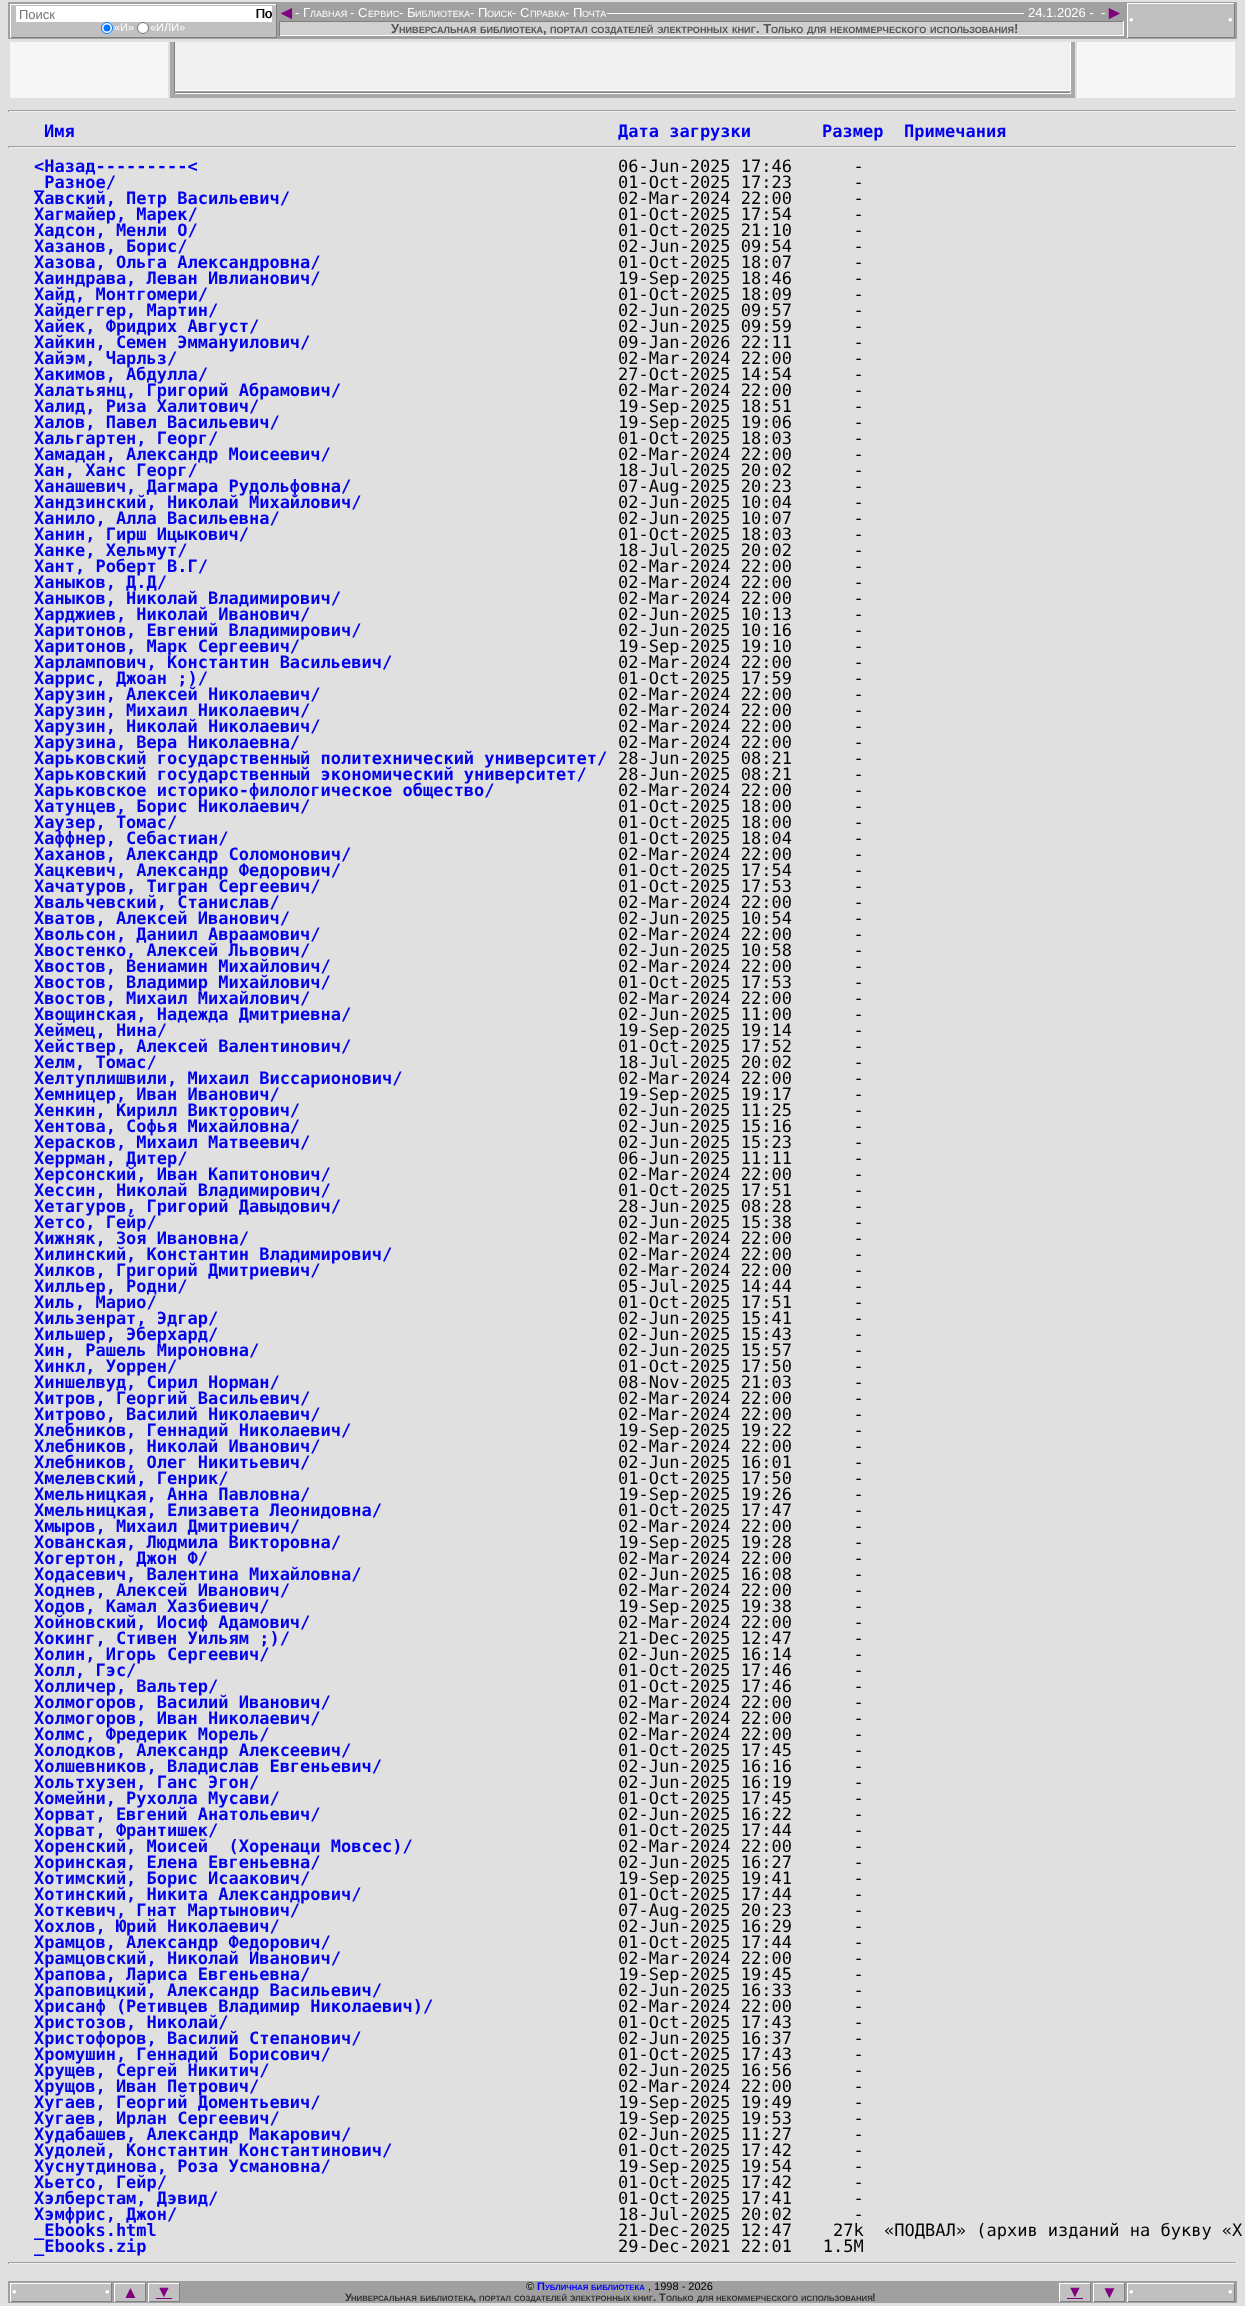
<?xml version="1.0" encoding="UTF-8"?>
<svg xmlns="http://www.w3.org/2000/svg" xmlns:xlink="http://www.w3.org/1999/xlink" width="1245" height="2306">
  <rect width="100%" height="100%" fill="#e0e0e0" />
  <rect x="8" y="2" width="1229" height="37" fill="#a0a0a0" />
  <rect x="11" y="5" width="265" height="32" fill="#c0c0c0" />
  <rect x="10" y="4" width="267" height="1" fill="#ffffff" />
  <rect x="276" y="4" width="1" height="34" fill="#808080" />
  <rect x="10" y="37" width="267" height="1" fill="#808080" />
  <rect x="10" y="4" width="1" height="34" fill="#ffffff" />
  <rect x="16" y="6" width="256" height="16" fill="#ffffff" />
  <image x="256" y="9" width="16" height="9" xlink:href="image1.png" />
  <circle cx="107" cy="28" r="5.5" fill="#ffffff" stroke="#0075ff" />
  <circle cx="107" cy="28" r="3.5" fill="#0075ff" />
  <circle cx="143" cy="28" r="5.5" fill="#ffffff" stroke="#767676" />
  <rect x="606" y="13" width="418" height="1" fill="#ffffff" />
  <rect x="606" y="12" width="1" height="2" fill="#a0a0a0" />
  <rect x="280" y="22" width="843" height="13" fill="#d0d0d0" />
  <rect x="279" y="21" width="845" height="1" fill="#808080" />
  <rect x="1123" y="21" width="1" height="15" fill="#ffffff" />
  <rect x="279" y="35" width="845" height="1" fill="#ffffff" />
  <rect x="279" y="21" width="1" height="15" fill="#808080" />
  <rect x="1128" y="4" width="106" height="33" fill="#c0c0c0" />
  <rect x="1127" y="3" width="108" height="1" fill="#ffffff" />
  <rect x="1234" y="3" width="1" height="35" fill="#808080" />
  <rect x="1127" y="37" width="108" height="1" fill="#808080" />
  <rect x="1127" y="3" width="1" height="35" fill="#ffffff" />
  <rect x="10" y="42" width="158" height="56" fill="#f7f7f7" />
  <rect x="170" y="42" width="905" height="56" fill="#a9a9a9" />
  <rect x="175" y="42" width="895" height="48" fill="#f0f0f0" />
  <rect x="1070" y="42" width="1" height="49" fill="#ffffff" />
  <rect x="174" y="90" width="897" height="1" fill="#ffffff" />
  <rect x="174" y="42" width="1" height="49" fill="#808080" />
  <rect x="174" y="92" width="897" height="1" fill="#808080" />
  <rect x="1070" y="92" width="1" height="2" fill="#ffffff" />
  <rect x="174" y="93" width="897" height="1" fill="#ffffff" />
  <rect x="174" y="92" width="1" height="2" fill="#808080" />
  <rect x="1077" y="42" width="158" height="56" fill="#f7f7f7" />
  <rect x="8" y="110" width="1229" height="1" fill="#9f9f9f" />
  <rect x="1236" y="110" width="1" height="2" fill="#eeeeee" />
  <rect x="8" y="111" width="1229" height="1" fill="#eeeeee" />
  <rect x="8" y="110" width="1" height="2" fill="#9f9f9f" />
  <rect x="8" y="146" width="1229" height="1" fill="#9f9f9f" />
  <rect x="1236" y="146" width="1" height="2" fill="#eeeeee" />
  <rect x="8" y="147" width="1229" height="1" fill="#eeeeee" />
  <rect x="8" y="146" width="1" height="2" fill="#9f9f9f" />
  <rect x="8" y="2262" width="1229" height="1" fill="#9f9f9f" />
  <rect x="1236" y="2262" width="1" height="2" fill="#eeeeee" />
  <rect x="8" y="2263" width="1229" height="1" fill="#eeeeee" />
  <rect x="8" y="2262" width="1" height="2" fill="#9f9f9f" />
  <rect x="8" y="2281" width="1229" height="22" fill="#a0a0a0" />
  <rect x="11" y="2284" width="100" height="17" fill="#c0c0c0" />
  <rect x="10" y="2283" width="102" height="1" fill="#ffffff" />
  <rect x="111" y="2283" width="1" height="19" fill="#808080" />
  <rect x="10" y="2301" width="102" height="1" fill="#808080" />
  <rect x="10" y="2283" width="1" height="19" fill="#ffffff" />
  <rect x="115" y="2284" width="30" height="17" fill="#c0c0c0" />
  <rect x="114" y="2283" width="32" height="1" fill="#ffffff" />
  <rect x="145" y="2283" width="1" height="19" fill="#808080" />
  <rect x="114" y="2301" width="32" height="1" fill="#808080" />
  <rect x="114" y="2283" width="1" height="19" fill="#ffffff" />
  <rect x="149" y="2284" width="30" height="17" fill="#c0c0c0" />
  <rect x="148" y="2283" width="32" height="1" fill="#ffffff" />
  <rect x="179" y="2283" width="1" height="19" fill="#808080" />
  <rect x="148" y="2301" width="32" height="1" fill="#808080" />
  <rect x="148" y="2283" width="1" height="19" fill="#ffffff" />
  <rect x="156" y="2298" width="16" height="1" fill="#800080" />
  <rect x="1060" y="2284" width="30" height="17" fill="#c0c0c0" />
  <rect x="1059" y="2283" width="32" height="1" fill="#ffffff" />
  <rect x="1090" y="2283" width="1" height="19" fill="#808080" />
  <rect x="1059" y="2301" width="32" height="1" fill="#808080" />
  <rect x="1059" y="2283" width="1" height="19" fill="#ffffff" />
  <rect x="1067" y="2298" width="16" height="1" fill="#800080" />
  <rect x="1094" y="2284" width="30" height="17" fill="#c0c0c0" />
  <rect x="1093" y="2283" width="32" height="1" fill="#ffffff" />
  <rect x="1124" y="2283" width="1" height="19" fill="#808080" />
  <rect x="1093" y="2301" width="32" height="1" fill="#808080" />
  <rect x="1093" y="2283" width="1" height="19" fill="#ffffff" />
  <rect x="1128" y="2284" width="106" height="17" fill="#c0c0c0" />
  <rect x="1127" y="2283" width="108" height="1" fill="#ffffff" />
  <rect x="1234" y="2283" width="1" height="19" fill="#808080" />
  <rect x="1127" y="2301" width="108" height="1" fill="#808080" />
  <rect x="1127" y="2283" width="1" height="19" fill="#ffffff" />
  <text x="19" y="19" style="font-family: Liberation Sans; font-size: 13px; fill: #757575">Поиск</text>
  <text x="256" y="18" style="font-family: Liberation Sans; font-size: 13px; fill: #000000">По</text>
  <text x="114" y="31" style="font-family: Liberation Sans; font-size: 11px; fill: #ffffff">«И»</text>
  <text x="150" y="31" style="font-family: Liberation Sans; font-size: 11px; fill: #ffffff">«ИЛИ»</text>
  <text x="277" y="19" style="font-family: Liberation Sans; font-size: 19px; fill: #800080">◄</text>
  <text x="295" y="17" style="font-family: Liberation Sans; font-size: 13px; fill: #ffffff">- Г</text>
  <text x="310" y="17" style="font-family: Liberation Sans; font-size: 9.1px; fill: #ffffff">ЛАВНАЯ</text>
  <text x="350" y="17" style="font-family: Liberation Sans; font-size: 13px; fill: #ffffff">- С</text>
  <text x="368" y="17" style="font-family: Liberation Sans; font-size: 9.1px; fill: #ffffff">ЕРВИС</text>
  <text x="399" y="17" style="font-family: Liberation Sans; font-size: 13px; fill: #ffffff">- Б</text>
  <text x="415" y="17" style="font-family: Liberation Sans; font-size: 9.1px; fill: #ffffff">ИБЛИОТЕКА</text>
  <rect x="470" y="16" width="1" height="3" fill="#a0a0a0" />
  <text x="470" y="17" style="font-family: Liberation Sans; font-size: 13px; fill: #ffffff">- П</text>
  <text x="487" y="17" style="font-family: Liberation Sans; font-size: 9.1px; fill: #ffffff">ОИСК</text>
  <rect x="512" y="16" width="1" height="3" fill="#a0a0a0" />
  <text x="512" y="17" style="font-family: Liberation Sans; font-size: 13px; fill: #ffffff">- С</text>
  <text x="530" y="17" style="font-family: Liberation Sans; font-size: 9.1px; fill: #ffffff">ПРАВКА</text>
  <text x="565" y="17" style="font-family: Liberation Sans; font-size: 13px; fill: #ffffff">- П</text>
  <text x="582" y="17" style="font-family: Liberation Sans; font-size: 9.1px; fill: #ffffff">ОЧТА</text>
  <text x="1028" y="17" style="font-family: Liberation Sans; font-size: 13px; fill: #ffffff">24.1.2026 -</text>
  <text x="1101" y="17" style="font-family: Liberation Sans; font-size: 13px; fill: #ffffff">-</text>
  <text x="1105" y="19" style="font-family: Liberation Sans; font-size: 19px; fill: #800080">►</text>
  <text x="391" y="33" style="font-family: Liberation Sans; font-size: 13px; font-weight: bold; fill: #555555">У</text>
  <text x="399" y="33" style="font-family: Liberation Sans; font-size: 9.1px; font-weight: bold; fill: #555555">НИВЕРСАЛЬНАЯ</text>
  <text x="480" y="33" style="font-family: Liberation Sans; font-size: 9.1px; font-weight: bold; fill: #555555">БИБЛИОТЕКА</text>
  <text x="543" y="33" style="font-family: Liberation Sans; font-size: 13px; font-weight: bold; fill: #555555">,</text>
  <text x="550" y="33" style="font-family: Liberation Sans; font-size: 9.1px; font-weight: bold; fill: #555555">ПОРТАЛ</text>
  <text x="591" y="33" style="font-family: Liberation Sans; font-size: 9.1px; font-weight: bold; fill: #555555">СОЗДАТЕЛЕЙ</text>
  <text x="657" y="33" style="font-family: Liberation Sans; font-size: 9.1px; font-weight: bold; fill: #555555">ЭЛЕКТРОННЫХ</text>
  <text x="732" y="33" style="font-family: Liberation Sans; font-size: 9.1px; font-weight: bold; fill: #555555">КНИГ</text>
  <text x="756" y="33" style="font-family: Liberation Sans; font-size: 13px; font-weight: bold; fill: #555555">. Т</text>
  <text x="771" y="33" style="font-family: Liberation Sans; font-size: 9.1px; font-weight: bold; fill: #555555">ОЛЬКО</text>
  <text x="807" y="33" style="font-family: Liberation Sans; font-size: 9.1px; font-weight: bold; fill: #555555">ДЛЯ</text>
  <text x="830" y="33" style="font-family: Liberation Sans; font-size: 9.1px; font-weight: bold; fill: #555555">НЕКОММЕРЧЕСКОГО</text>
  <text x="930" y="33" style="font-family: Liberation Sans; font-size: 9.1px; font-weight: bold; fill: #555555">ИСПОЛЬЗОВАНИЯ</text>
  <text x="1014" y="33" style="font-family: Liberation Sans; font-size: 13px; font-weight: bold; fill: #555555">!</text>
  <text x="1129" y="24" style="font-family: Liberation Sans; font-size: 13px; fill: #ffffff">•</text>
  <text x="1228" y="24" style="font-family: Liberation Sans; font-size: 13px; fill: #ffffff">•</text>
  <text x="44" y="137" style="font-family: DejaVu Sans Mono; font-size: 17px; font-weight: bold; fill: #0000ee">Имя</text>
  <text x="618" y="137" style="font-family: DejaVu Sans Mono; font-size: 17px; font-weight: bold; fill: #0000ee">Дата загрузки</text>
  <text x="822" y="137" style="font-family: DejaVu Sans Mono; font-size: 17px; font-weight: bold; fill: #0000ee">Размер</text>
  <text x="904" y="137" style="font-family: DejaVu Sans Mono; font-size: 17px; font-weight: bold; fill: #0000ee">Примечания</text>
  <text x="34" y="172" style="font-family: DejaVu Sans Mono; font-size: 17px; font-weight: bold; fill: #0000ee">&lt;Назад---------&lt;</text>
  <text x="618" y="172" style="font-family: DejaVu Sans Mono; font-size: 17px; fill: #000000" xml:space="preserve">06-Jun-2025 17:46      -</text>
  <text x="34" y="188" style="font-family: DejaVu Sans Mono; font-size: 17px; font-weight: bold; fill: #0000ee">_Разное/</text>
  <text x="618" y="188" style="font-family: DejaVu Sans Mono; font-size: 17px; fill: #000000" xml:space="preserve">01-Oct-2025 17:23      -</text>
  <text x="34" y="204" style="font-family: DejaVu Sans Mono; font-size: 17px; font-weight: bold; fill: #0000ee">Хавский, Петр Васильевич/</text>
  <text x="618" y="204" style="font-family: DejaVu Sans Mono; font-size: 17px; fill: #000000" xml:space="preserve">02-Mar-2024 22:00      -</text>
  <text x="34" y="220" style="font-family: DejaVu Sans Mono; font-size: 17px; font-weight: bold; fill: #0000ee">Хагмайер, Марек/</text>
  <text x="618" y="220" style="font-family: DejaVu Sans Mono; font-size: 17px; fill: #000000" xml:space="preserve">01-Oct-2025 17:54      -</text>
  <text x="34" y="236" style="font-family: DejaVu Sans Mono; font-size: 17px; font-weight: bold; fill: #0000ee">Хадсон, Менли О/</text>
  <text x="618" y="236" style="font-family: DejaVu Sans Mono; font-size: 17px; fill: #000000" xml:space="preserve">01-Oct-2025 21:10      -</text>
  <text x="34" y="252" style="font-family: DejaVu Sans Mono; font-size: 17px; font-weight: bold; fill: #0000ee">Хазанов, Борис/</text>
  <text x="618" y="252" style="font-family: DejaVu Sans Mono; font-size: 17px; fill: #000000" xml:space="preserve">02-Jun-2025 09:54      -</text>
  <text x="34" y="268" style="font-family: DejaVu Sans Mono; font-size: 17px; font-weight: bold; fill: #0000ee">Хазова, Ольга Александровна/</text>
  <text x="618" y="268" style="font-family: DejaVu Sans Mono; font-size: 17px; fill: #000000" xml:space="preserve">01-Oct-2025 18:07      -</text>
  <text x="34" y="284" style="font-family: DejaVu Sans Mono; font-size: 17px; font-weight: bold; fill: #0000ee">Хаиндрава, Леван Ивлианович/</text>
  <text x="618" y="284" style="font-family: DejaVu Sans Mono; font-size: 17px; fill: #000000" xml:space="preserve">19-Sep-2025 18:46      -</text>
  <text x="34" y="300" style="font-family: DejaVu Sans Mono; font-size: 17px; font-weight: bold; fill: #0000ee">Хайд, Монтгомери/</text>
  <text x="618" y="300" style="font-family: DejaVu Sans Mono; font-size: 17px; fill: #000000" xml:space="preserve">01-Oct-2025 18:09      -</text>
  <text x="34" y="316" style="font-family: DejaVu Sans Mono; font-size: 17px; font-weight: bold; fill: #0000ee">Хайдеггер, Мартин/</text>
  <text x="618" y="316" style="font-family: DejaVu Sans Mono; font-size: 17px; fill: #000000" xml:space="preserve">02-Jun-2025 09:57      -</text>
  <text x="34" y="332" style="font-family: DejaVu Sans Mono; font-size: 17px; font-weight: bold; fill: #0000ee">Хайек, Фридрих Август/</text>
  <text x="618" y="332" style="font-family: DejaVu Sans Mono; font-size: 17px; fill: #000000" xml:space="preserve">02-Jun-2025 09:59      -</text>
  <text x="34" y="348" style="font-family: DejaVu Sans Mono; font-size: 17px; font-weight: bold; fill: #0000ee">Хайкин, Семен Эммануилович/</text>
  <text x="618" y="348" style="font-family: DejaVu Sans Mono; font-size: 17px; fill: #000000" xml:space="preserve">09-Jan-2026 22:11      -</text>
  <text x="34" y="364" style="font-family: DejaVu Sans Mono; font-size: 17px; font-weight: bold; fill: #0000ee">Хайэм, Чарльз/</text>
  <text x="618" y="364" style="font-family: DejaVu Sans Mono; font-size: 17px; fill: #000000" xml:space="preserve">02-Mar-2024 22:00      -</text>
  <text x="34" y="380" style="font-family: DejaVu Sans Mono; font-size: 17px; font-weight: bold; fill: #0000ee">Хакимов, Абдулла/</text>
  <text x="618" y="380" style="font-family: DejaVu Sans Mono; font-size: 17px; fill: #000000" xml:space="preserve">27-Oct-2025 14:54      -</text>
  <text x="34" y="396" style="font-family: DejaVu Sans Mono; font-size: 17px; font-weight: bold; fill: #0000ee">Халатьянц, Григорий Абрамович/</text>
  <text x="618" y="396" style="font-family: DejaVu Sans Mono; font-size: 17px; fill: #000000" xml:space="preserve">02-Mar-2024 22:00      -</text>
  <text x="34" y="412" style="font-family: DejaVu Sans Mono; font-size: 17px; font-weight: bold; fill: #0000ee">Халид, Риза Халитович/</text>
  <text x="618" y="412" style="font-family: DejaVu Sans Mono; font-size: 17px; fill: #000000" xml:space="preserve">19-Sep-2025 18:51      -</text>
  <text x="34" y="428" style="font-family: DejaVu Sans Mono; font-size: 17px; font-weight: bold; fill: #0000ee">Халов, Павел Васильевич/</text>
  <text x="618" y="428" style="font-family: DejaVu Sans Mono; font-size: 17px; fill: #000000" xml:space="preserve">19-Sep-2025 19:06      -</text>
  <text x="34" y="444" style="font-family: DejaVu Sans Mono; font-size: 17px; font-weight: bold; fill: #0000ee">Хальгартен, Георг/</text>
  <text x="618" y="444" style="font-family: DejaVu Sans Mono; font-size: 17px; fill: #000000" xml:space="preserve">01-Oct-2025 18:03      -</text>
  <text x="34" y="460" style="font-family: DejaVu Sans Mono; font-size: 17px; font-weight: bold; fill: #0000ee">Хамадан, Александр Моисеевич/</text>
  <text x="618" y="460" style="font-family: DejaVu Sans Mono; font-size: 17px; fill: #000000" xml:space="preserve">02-Mar-2024 22:00      -</text>
  <text x="34" y="476" style="font-family: DejaVu Sans Mono; font-size: 17px; font-weight: bold; fill: #0000ee">Хан, Ханс Георг/</text>
  <text x="618" y="476" style="font-family: DejaVu Sans Mono; font-size: 17px; fill: #000000" xml:space="preserve">18-Jul-2025 20:02      -</text>
  <text x="34" y="492" style="font-family: DejaVu Sans Mono; font-size: 17px; font-weight: bold; fill: #0000ee">Ханашевич, Дагмара Рудольфовна/</text>
  <text x="618" y="492" style="font-family: DejaVu Sans Mono; font-size: 17px; fill: #000000" xml:space="preserve">07-Aug-2025 20:23      -</text>
  <text x="34" y="508" style="font-family: DejaVu Sans Mono; font-size: 17px; font-weight: bold; fill: #0000ee">Хандзинский, Николай Михайлович/</text>
  <text x="618" y="508" style="font-family: DejaVu Sans Mono; font-size: 17px; fill: #000000" xml:space="preserve">02-Jun-2025 10:04      -</text>
  <text x="34" y="524" style="font-family: DejaVu Sans Mono; font-size: 17px; font-weight: bold; fill: #0000ee">Ханило, Алла Васильевна/</text>
  <text x="618" y="524" style="font-family: DejaVu Sans Mono; font-size: 17px; fill: #000000" xml:space="preserve">02-Jun-2025 10:07      -</text>
  <text x="34" y="540" style="font-family: DejaVu Sans Mono; font-size: 17px; font-weight: bold; fill: #0000ee">Ханин, Гирш Ицыкович/</text>
  <text x="618" y="540" style="font-family: DejaVu Sans Mono; font-size: 17px; fill: #000000" xml:space="preserve">01-Oct-2025 18:03      -</text>
  <text x="34" y="556" style="font-family: DejaVu Sans Mono; font-size: 17px; font-weight: bold; fill: #0000ee">Ханке, Хельмут/</text>
  <text x="618" y="556" style="font-family: DejaVu Sans Mono; font-size: 17px; fill: #000000" xml:space="preserve">18-Jul-2025 20:02      -</text>
  <text x="34" y="572" style="font-family: DejaVu Sans Mono; font-size: 17px; font-weight: bold; fill: #0000ee">Хант, Роберт В.Г/</text>
  <text x="618" y="572" style="font-family: DejaVu Sans Mono; font-size: 17px; fill: #000000" xml:space="preserve">02-Mar-2024 22:00      -</text>
  <text x="34" y="588" style="font-family: DejaVu Sans Mono; font-size: 17px; font-weight: bold; fill: #0000ee">Ханыков, Д.Д/</text>
  <text x="618" y="588" style="font-family: DejaVu Sans Mono; font-size: 17px; fill: #000000" xml:space="preserve">02-Mar-2024 22:00      -</text>
  <text x="34" y="604" style="font-family: DejaVu Sans Mono; font-size: 17px; font-weight: bold; fill: #0000ee">Ханыков, Николай Владимирович/</text>
  <text x="618" y="604" style="font-family: DejaVu Sans Mono; font-size: 17px; fill: #000000" xml:space="preserve">02-Mar-2024 22:00      -</text>
  <text x="34" y="620" style="font-family: DejaVu Sans Mono; font-size: 17px; font-weight: bold; fill: #0000ee">Харджиев, Николай Иванович/</text>
  <text x="618" y="620" style="font-family: DejaVu Sans Mono; font-size: 17px; fill: #000000" xml:space="preserve">02-Jun-2025 10:13      -</text>
  <text x="34" y="636" style="font-family: DejaVu Sans Mono; font-size: 17px; font-weight: bold; fill: #0000ee">Харитонов, Евгений Владимирович/</text>
  <text x="618" y="636" style="font-family: DejaVu Sans Mono; font-size: 17px; fill: #000000" xml:space="preserve">02-Jun-2025 10:16      -</text>
  <text x="34" y="652" style="font-family: DejaVu Sans Mono; font-size: 17px; font-weight: bold; fill: #0000ee">Харитонов, Марк Сергеевич/</text>
  <text x="618" y="652" style="font-family: DejaVu Sans Mono; font-size: 17px; fill: #000000" xml:space="preserve">19-Sep-2025 19:10      -</text>
  <text x="34" y="668" style="font-family: DejaVu Sans Mono; font-size: 17px; font-weight: bold; fill: #0000ee">Харлампович, Константин Васильевич/</text>
  <text x="618" y="668" style="font-family: DejaVu Sans Mono; font-size: 17px; fill: #000000" xml:space="preserve">02-Mar-2024 22:00      -</text>
  <text x="34" y="684" style="font-family: DejaVu Sans Mono; font-size: 17px; font-weight: bold; fill: #0000ee">Харрис, Джоан ;)/</text>
  <text x="618" y="684" style="font-family: DejaVu Sans Mono; font-size: 17px; fill: #000000" xml:space="preserve">01-Oct-2025 17:59      -</text>
  <text x="34" y="700" style="font-family: DejaVu Sans Mono; font-size: 17px; font-weight: bold; fill: #0000ee">Харузин, Алексей Николаевич/</text>
  <text x="618" y="700" style="font-family: DejaVu Sans Mono; font-size: 17px; fill: #000000" xml:space="preserve">02-Mar-2024 22:00      -</text>
  <text x="34" y="716" style="font-family: DejaVu Sans Mono; font-size: 17px; font-weight: bold; fill: #0000ee">Харузин, Михаил Николаевич/</text>
  <text x="618" y="716" style="font-family: DejaVu Sans Mono; font-size: 17px; fill: #000000" xml:space="preserve">02-Mar-2024 22:00      -</text>
  <text x="34" y="732" style="font-family: DejaVu Sans Mono; font-size: 17px; font-weight: bold; fill: #0000ee">Харузин, Николай Николаевич/</text>
  <text x="618" y="732" style="font-family: DejaVu Sans Mono; font-size: 17px; fill: #000000" xml:space="preserve">02-Mar-2024 22:00      -</text>
  <text x="34" y="748" style="font-family: DejaVu Sans Mono; font-size: 17px; font-weight: bold; fill: #0000ee">Харузина, Вера Николаевна/</text>
  <text x="618" y="748" style="font-family: DejaVu Sans Mono; font-size: 17px; fill: #000000" xml:space="preserve">02-Mar-2024 22:00      -</text>
  <text x="34" y="764" style="font-family: DejaVu Sans Mono; font-size: 17px; font-weight: bold; fill: #0000ee">Харьковский государственный политехнический университет/</text>
  <text x="618" y="764" style="font-family: DejaVu Sans Mono; font-size: 17px; fill: #000000" xml:space="preserve">28-Jun-2025 08:21      -</text>
  <text x="34" y="780" style="font-family: DejaVu Sans Mono; font-size: 17px; font-weight: bold; fill: #0000ee">Харьковский государственный экономический университет/</text>
  <text x="618" y="780" style="font-family: DejaVu Sans Mono; font-size: 17px; fill: #000000" xml:space="preserve">28-Jun-2025 08:21      -</text>
  <text x="34" y="796" style="font-family: DejaVu Sans Mono; font-size: 17px; font-weight: bold; fill: #0000ee">Харьковское историко-филологическое общество/</text>
  <text x="618" y="796" style="font-family: DejaVu Sans Mono; font-size: 17px; fill: #000000" xml:space="preserve">02-Mar-2024 22:00      -</text>
  <text x="34" y="812" style="font-family: DejaVu Sans Mono; font-size: 17px; font-weight: bold; fill: #0000ee">Хатунцев, Борис Николаевич/</text>
  <text x="618" y="812" style="font-family: DejaVu Sans Mono; font-size: 17px; fill: #000000" xml:space="preserve">01-Oct-2025 18:00      -</text>
  <text x="34" y="828" style="font-family: DejaVu Sans Mono; font-size: 17px; font-weight: bold; fill: #0000ee">Хаузер, Томас/</text>
  <text x="618" y="828" style="font-family: DejaVu Sans Mono; font-size: 17px; fill: #000000" xml:space="preserve">01-Oct-2025 18:00      -</text>
  <text x="34" y="844" style="font-family: DejaVu Sans Mono; font-size: 17px; font-weight: bold; fill: #0000ee">Хаффнер, Себастиан/</text>
  <text x="618" y="844" style="font-family: DejaVu Sans Mono; font-size: 17px; fill: #000000" xml:space="preserve">01-Oct-2025 18:04      -</text>
  <text x="34" y="860" style="font-family: DejaVu Sans Mono; font-size: 17px; font-weight: bold; fill: #0000ee">Хаханов, Александр Соломонович/</text>
  <text x="618" y="860" style="font-family: DejaVu Sans Mono; font-size: 17px; fill: #000000" xml:space="preserve">02-Mar-2024 22:00      -</text>
  <text x="34" y="876" style="font-family: DejaVu Sans Mono; font-size: 17px; font-weight: bold; fill: #0000ee">Хацкевич, Александр Федорович/</text>
  <text x="618" y="876" style="font-family: DejaVu Sans Mono; font-size: 17px; fill: #000000" xml:space="preserve">01-Oct-2025 17:54      -</text>
  <text x="34" y="892" style="font-family: DejaVu Sans Mono; font-size: 17px; font-weight: bold; fill: #0000ee">Хачатуров, Тигран Сергеевич/</text>
  <text x="618" y="892" style="font-family: DejaVu Sans Mono; font-size: 17px; fill: #000000" xml:space="preserve">01-Oct-2025 17:53      -</text>
  <text x="34" y="908" style="font-family: DejaVu Sans Mono; font-size: 17px; font-weight: bold; fill: #0000ee">Хвальчевский, Станислав/</text>
  <text x="618" y="908" style="font-family: DejaVu Sans Mono; font-size: 17px; fill: #000000" xml:space="preserve">02-Mar-2024 22:00      -</text>
  <text x="34" y="924" style="font-family: DejaVu Sans Mono; font-size: 17px; font-weight: bold; fill: #0000ee">Хватов, Алексей Иванович/</text>
  <text x="618" y="924" style="font-family: DejaVu Sans Mono; font-size: 17px; fill: #000000" xml:space="preserve">02-Jun-2025 10:54      -</text>
  <text x="34" y="940" style="font-family: DejaVu Sans Mono; font-size: 17px; font-weight: bold; fill: #0000ee">Хвольсон, Даниил Авраамович/</text>
  <text x="618" y="940" style="font-family: DejaVu Sans Mono; font-size: 17px; fill: #000000" xml:space="preserve">02-Mar-2024 22:00      -</text>
  <text x="34" y="956" style="font-family: DejaVu Sans Mono; font-size: 17px; font-weight: bold; fill: #0000ee">Хвостенко, Алексей Львович/</text>
  <text x="618" y="956" style="font-family: DejaVu Sans Mono; font-size: 17px; fill: #000000" xml:space="preserve">02-Jun-2025 10:58      -</text>
  <text x="34" y="972" style="font-family: DejaVu Sans Mono; font-size: 17px; font-weight: bold; fill: #0000ee">Хвостов, Вениамин Михайлович/</text>
  <text x="618" y="972" style="font-family: DejaVu Sans Mono; font-size: 17px; fill: #000000" xml:space="preserve">02-Mar-2024 22:00      -</text>
  <text x="34" y="988" style="font-family: DejaVu Sans Mono; font-size: 17px; font-weight: bold; fill: #0000ee">Хвостов, Владимир Михайлович/</text>
  <text x="618" y="988" style="font-family: DejaVu Sans Mono; font-size: 17px; fill: #000000" xml:space="preserve">01-Oct-2025 17:53      -</text>
  <text x="34" y="1004" style="font-family: DejaVu Sans Mono; font-size: 17px; font-weight: bold; fill: #0000ee">Хвостов, Михаил Михайлович/</text>
  <text x="618" y="1004" style="font-family: DejaVu Sans Mono; font-size: 17px; fill: #000000" xml:space="preserve">02-Mar-2024 22:00      -</text>
  <text x="34" y="1020" style="font-family: DejaVu Sans Mono; font-size: 17px; font-weight: bold; fill: #0000ee">Хвощинская, Надежда Дмитриевна/</text>
  <text x="618" y="1020" style="font-family: DejaVu Sans Mono; font-size: 17px; fill: #000000" xml:space="preserve">02-Jun-2025 11:00      -</text>
  <text x="34" y="1036" style="font-family: DejaVu Sans Mono; font-size: 17px; font-weight: bold; fill: #0000ee">Хеймец, Нина/</text>
  <text x="618" y="1036" style="font-family: DejaVu Sans Mono; font-size: 17px; fill: #000000" xml:space="preserve">19-Sep-2025 19:14      -</text>
  <text x="34" y="1052" style="font-family: DejaVu Sans Mono; font-size: 17px; font-weight: bold; fill: #0000ee">Хействер, Алексей Валентинович/</text>
  <text x="618" y="1052" style="font-family: DejaVu Sans Mono; font-size: 17px; fill: #000000" xml:space="preserve">01-Oct-2025 17:52      -</text>
  <text x="34" y="1068" style="font-family: DejaVu Sans Mono; font-size: 17px; font-weight: bold; fill: #0000ee">Хелм, Томас/</text>
  <text x="618" y="1068" style="font-family: DejaVu Sans Mono; font-size: 17px; fill: #000000" xml:space="preserve">18-Jul-2025 20:02      -</text>
  <text x="34" y="1084" style="font-family: DejaVu Sans Mono; font-size: 17px; font-weight: bold; fill: #0000ee">Хелтуплишвили, Михаил Виссарионович/</text>
  <text x="618" y="1084" style="font-family: DejaVu Sans Mono; font-size: 17px; fill: #000000" xml:space="preserve">02-Mar-2024 22:00      -</text>
  <text x="34" y="1100" style="font-family: DejaVu Sans Mono; font-size: 17px; font-weight: bold; fill: #0000ee">Хемницер, Иван Иванович/</text>
  <text x="618" y="1100" style="font-family: DejaVu Sans Mono; font-size: 17px; fill: #000000" xml:space="preserve">19-Sep-2025 19:17      -</text>
  <text x="34" y="1116" style="font-family: DejaVu Sans Mono; font-size: 17px; font-weight: bold; fill: #0000ee">Хенкин, Кирилл Викторович/</text>
  <text x="618" y="1116" style="font-family: DejaVu Sans Mono; font-size: 17px; fill: #000000" xml:space="preserve">02-Jun-2025 11:25      -</text>
  <text x="34" y="1132" style="font-family: DejaVu Sans Mono; font-size: 17px; font-weight: bold; fill: #0000ee">Хентова, Софья Михайловна/</text>
  <text x="618" y="1132" style="font-family: DejaVu Sans Mono; font-size: 17px; fill: #000000" xml:space="preserve">02-Jun-2025 15:16      -</text>
  <text x="34" y="1148" style="font-family: DejaVu Sans Mono; font-size: 17px; font-weight: bold; fill: #0000ee">Херасков, Михаил Матвеевич/</text>
  <text x="618" y="1148" style="font-family: DejaVu Sans Mono; font-size: 17px; fill: #000000" xml:space="preserve">02-Jun-2025 15:23      -</text>
  <text x="34" y="1164" style="font-family: DejaVu Sans Mono; font-size: 17px; font-weight: bold; fill: #0000ee">Херрман, Дитер/</text>
  <text x="618" y="1164" style="font-family: DejaVu Sans Mono; font-size: 17px; fill: #000000" xml:space="preserve">06-Jun-2025 11:11      -</text>
  <text x="34" y="1180" style="font-family: DejaVu Sans Mono; font-size: 17px; font-weight: bold; fill: #0000ee">Херсонский, Иван Капитонович/</text>
  <text x="618" y="1180" style="font-family: DejaVu Sans Mono; font-size: 17px; fill: #000000" xml:space="preserve">02-Mar-2024 22:00      -</text>
  <text x="34" y="1196" style="font-family: DejaVu Sans Mono; font-size: 17px; font-weight: bold; fill: #0000ee">Хессин, Николай Владимирович/</text>
  <text x="618" y="1196" style="font-family: DejaVu Sans Mono; font-size: 17px; fill: #000000" xml:space="preserve">01-Oct-2025 17:51      -</text>
  <text x="34" y="1212" style="font-family: DejaVu Sans Mono; font-size: 17px; font-weight: bold; fill: #0000ee">Хетагуров, Григорий Давыдович/</text>
  <text x="618" y="1212" style="font-family: DejaVu Sans Mono; font-size: 17px; fill: #000000" xml:space="preserve">28-Jun-2025 08:28      -</text>
  <text x="34" y="1228" style="font-family: DejaVu Sans Mono; font-size: 17px; font-weight: bold; fill: #0000ee">Хетсо, Гейр/</text>
  <text x="618" y="1228" style="font-family: DejaVu Sans Mono; font-size: 17px; fill: #000000" xml:space="preserve">02-Jun-2025 15:38      -</text>
  <text x="34" y="1244" style="font-family: DejaVu Sans Mono; font-size: 17px; font-weight: bold; fill: #0000ee">Хижняк, Зоя Ивановна/</text>
  <text x="618" y="1244" style="font-family: DejaVu Sans Mono; font-size: 17px; fill: #000000" xml:space="preserve">02-Mar-2024 22:00      -</text>
  <text x="34" y="1260" style="font-family: DejaVu Sans Mono; font-size: 17px; font-weight: bold; fill: #0000ee">Хилинский, Константин Владимирович/</text>
  <text x="618" y="1260" style="font-family: DejaVu Sans Mono; font-size: 17px; fill: #000000" xml:space="preserve">02-Mar-2024 22:00      -</text>
  <text x="34" y="1276" style="font-family: DejaVu Sans Mono; font-size: 17px; font-weight: bold; fill: #0000ee">Хилков, Григорий Дмитриевич/</text>
  <text x="618" y="1276" style="font-family: DejaVu Sans Mono; font-size: 17px; fill: #000000" xml:space="preserve">02-Mar-2024 22:00      -</text>
  <text x="34" y="1292" style="font-family: DejaVu Sans Mono; font-size: 17px; font-weight: bold; fill: #0000ee">Хилльер, Родни/</text>
  <text x="618" y="1292" style="font-family: DejaVu Sans Mono; font-size: 17px; fill: #000000" xml:space="preserve">05-Jul-2025 14:44      -</text>
  <text x="34" y="1308" style="font-family: DejaVu Sans Mono; font-size: 17px; font-weight: bold; fill: #0000ee">Хиль, Марио/</text>
  <text x="618" y="1308" style="font-family: DejaVu Sans Mono; font-size: 17px; fill: #000000" xml:space="preserve">01-Oct-2025 17:51      -</text>
  <text x="34" y="1324" style="font-family: DejaVu Sans Mono; font-size: 17px; font-weight: bold; fill: #0000ee">Хильзенрат, Эдгар/</text>
  <text x="618" y="1324" style="font-family: DejaVu Sans Mono; font-size: 17px; fill: #000000" xml:space="preserve">02-Jun-2025 15:41      -</text>
  <text x="34" y="1340" style="font-family: DejaVu Sans Mono; font-size: 17px; font-weight: bold; fill: #0000ee">Хильшер, Эберхард/</text>
  <text x="618" y="1340" style="font-family: DejaVu Sans Mono; font-size: 17px; fill: #000000" xml:space="preserve">02-Jun-2025 15:43      -</text>
  <text x="34" y="1356" style="font-family: DejaVu Sans Mono; font-size: 17px; font-weight: bold; fill: #0000ee">Хин, Рашель Мироновна/</text>
  <text x="618" y="1356" style="font-family: DejaVu Sans Mono; font-size: 17px; fill: #000000" xml:space="preserve">02-Jun-2025 15:57      -</text>
  <text x="34" y="1372" style="font-family: DejaVu Sans Mono; font-size: 17px; font-weight: bold; fill: #0000ee">Хинкл, Уоррен/</text>
  <text x="618" y="1372" style="font-family: DejaVu Sans Mono; font-size: 17px; fill: #000000" xml:space="preserve">01-Oct-2025 17:50      -</text>
  <text x="34" y="1388" style="font-family: DejaVu Sans Mono; font-size: 17px; font-weight: bold; fill: #0000ee">Хиншелвуд, Сирил Норман/</text>
  <text x="618" y="1388" style="font-family: DejaVu Sans Mono; font-size: 17px; fill: #000000" xml:space="preserve">08-Nov-2025 21:03      -</text>
  <text x="34" y="1404" style="font-family: DejaVu Sans Mono; font-size: 17px; font-weight: bold; fill: #0000ee">Хитров, Георгий Васильевич/</text>
  <text x="618" y="1404" style="font-family: DejaVu Sans Mono; font-size: 17px; fill: #000000" xml:space="preserve">02-Mar-2024 22:00      -</text>
  <text x="34" y="1420" style="font-family: DejaVu Sans Mono; font-size: 17px; font-weight: bold; fill: #0000ee">Хитрово, Василий Николаевич/</text>
  <text x="618" y="1420" style="font-family: DejaVu Sans Mono; font-size: 17px; fill: #000000" xml:space="preserve">02-Mar-2024 22:00      -</text>
  <text x="34" y="1436" style="font-family: DejaVu Sans Mono; font-size: 17px; font-weight: bold; fill: #0000ee">Хлебников, Геннадий Николаевич/</text>
  <text x="618" y="1436" style="font-family: DejaVu Sans Mono; font-size: 17px; fill: #000000" xml:space="preserve">19-Sep-2025 19:22      -</text>
  <text x="34" y="1452" style="font-family: DejaVu Sans Mono; font-size: 17px; font-weight: bold; fill: #0000ee">Хлебников, Николай Иванович/</text>
  <text x="618" y="1452" style="font-family: DejaVu Sans Mono; font-size: 17px; fill: #000000" xml:space="preserve">02-Mar-2024 22:00      -</text>
  <text x="34" y="1468" style="font-family: DejaVu Sans Mono; font-size: 17px; font-weight: bold; fill: #0000ee">Хлебников, Олег Никитьевич/</text>
  <text x="618" y="1468" style="font-family: DejaVu Sans Mono; font-size: 17px; fill: #000000" xml:space="preserve">02-Jun-2025 16:01      -</text>
  <text x="34" y="1484" style="font-family: DejaVu Sans Mono; font-size: 17px; font-weight: bold; fill: #0000ee">Хмелевский, Генрик/</text>
  <text x="618" y="1484" style="font-family: DejaVu Sans Mono; font-size: 17px; fill: #000000" xml:space="preserve">01-Oct-2025 17:50      -</text>
  <text x="34" y="1500" style="font-family: DejaVu Sans Mono; font-size: 17px; font-weight: bold; fill: #0000ee">Хмельницкая, Анна Павловна/</text>
  <text x="618" y="1500" style="font-family: DejaVu Sans Mono; font-size: 17px; fill: #000000" xml:space="preserve">19-Sep-2025 19:26      -</text>
  <text x="34" y="1516" style="font-family: DejaVu Sans Mono; font-size: 17px; font-weight: bold; fill: #0000ee">Хмельницкая, Елизавета Леонидовна/</text>
  <text x="618" y="1516" style="font-family: DejaVu Sans Mono; font-size: 17px; fill: #000000" xml:space="preserve">01-Oct-2025 17:47      -</text>
  <text x="34" y="1532" style="font-family: DejaVu Sans Mono; font-size: 17px; font-weight: bold; fill: #0000ee">Хмыров, Михаил Дмитриевич/</text>
  <text x="618" y="1532" style="font-family: DejaVu Sans Mono; font-size: 17px; fill: #000000" xml:space="preserve">02-Mar-2024 22:00      -</text>
  <text x="34" y="1548" style="font-family: DejaVu Sans Mono; font-size: 17px; font-weight: bold; fill: #0000ee">Хованская, Людмила Викторовна/</text>
  <text x="618" y="1548" style="font-family: DejaVu Sans Mono; font-size: 17px; fill: #000000" xml:space="preserve">19-Sep-2025 19:28      -</text>
  <text x="34" y="1564" style="font-family: DejaVu Sans Mono; font-size: 17px; font-weight: bold; fill: #0000ee">Хогертон, Джон Ф/</text>
  <text x="618" y="1564" style="font-family: DejaVu Sans Mono; font-size: 17px; fill: #000000" xml:space="preserve">02-Mar-2024 22:00      -</text>
  <text x="34" y="1580" style="font-family: DejaVu Sans Mono; font-size: 17px; font-weight: bold; fill: #0000ee">Ходасевич, Валентина Михайловна/</text>
  <text x="618" y="1580" style="font-family: DejaVu Sans Mono; font-size: 17px; fill: #000000" xml:space="preserve">02-Jun-2025 16:08      -</text>
  <text x="34" y="1596" style="font-family: DejaVu Sans Mono; font-size: 17px; font-weight: bold; fill: #0000ee">Ходнев, Алексей Иванович/</text>
  <text x="618" y="1596" style="font-family: DejaVu Sans Mono; font-size: 17px; fill: #000000" xml:space="preserve">02-Mar-2024 22:00      -</text>
  <text x="34" y="1612" style="font-family: DejaVu Sans Mono; font-size: 17px; font-weight: bold; fill: #0000ee">Ходов, Камал Хазбиевич/</text>
  <text x="618" y="1612" style="font-family: DejaVu Sans Mono; font-size: 17px; fill: #000000" xml:space="preserve">19-Sep-2025 19:38      -</text>
  <text x="34" y="1628" style="font-family: DejaVu Sans Mono; font-size: 17px; font-weight: bold; fill: #0000ee">Хойновский, Иосиф Адамович/</text>
  <text x="618" y="1628" style="font-family: DejaVu Sans Mono; font-size: 17px; fill: #000000" xml:space="preserve">02-Mar-2024 22:00      -</text>
  <text x="34" y="1644" style="font-family: DejaVu Sans Mono; font-size: 17px; font-weight: bold; fill: #0000ee">Хокинг, Стивен Уильям ;)/</text>
  <text x="618" y="1644" style="font-family: DejaVu Sans Mono; font-size: 17px; fill: #000000" xml:space="preserve">21-Dec-2025 12:47      -</text>
  <text x="34" y="1660" style="font-family: DejaVu Sans Mono; font-size: 17px; font-weight: bold; fill: #0000ee">Холин, Игорь Сергеевич/</text>
  <text x="618" y="1660" style="font-family: DejaVu Sans Mono; font-size: 17px; fill: #000000" xml:space="preserve">02-Jun-2025 16:14      -</text>
  <text x="34" y="1676" style="font-family: DejaVu Sans Mono; font-size: 17px; font-weight: bold; fill: #0000ee">Холл, Гэс/</text>
  <text x="618" y="1676" style="font-family: DejaVu Sans Mono; font-size: 17px; fill: #000000" xml:space="preserve">01-Oct-2025 17:46      -</text>
  <text x="34" y="1692" style="font-family: DejaVu Sans Mono; font-size: 17px; font-weight: bold; fill: #0000ee">Холличер, Вальтер/</text>
  <text x="618" y="1692" style="font-family: DejaVu Sans Mono; font-size: 17px; fill: #000000" xml:space="preserve">01-Oct-2025 17:46      -</text>
  <text x="34" y="1708" style="font-family: DejaVu Sans Mono; font-size: 17px; font-weight: bold; fill: #0000ee">Холмогоров, Василий Иванович/</text>
  <text x="618" y="1708" style="font-family: DejaVu Sans Mono; font-size: 17px; fill: #000000" xml:space="preserve">02-Mar-2024 22:00      -</text>
  <text x="34" y="1724" style="font-family: DejaVu Sans Mono; font-size: 17px; font-weight: bold; fill: #0000ee">Холмогоров, Иван Николаевич/</text>
  <text x="618" y="1724" style="font-family: DejaVu Sans Mono; font-size: 17px; fill: #000000" xml:space="preserve">02-Mar-2024 22:00      -</text>
  <text x="34" y="1740" style="font-family: DejaVu Sans Mono; font-size: 17px; font-weight: bold; fill: #0000ee">Холмс, Фредерик Морель/</text>
  <text x="618" y="1740" style="font-family: DejaVu Sans Mono; font-size: 17px; fill: #000000" xml:space="preserve">02-Mar-2024 22:00      -</text>
  <text x="34" y="1756" style="font-family: DejaVu Sans Mono; font-size: 17px; font-weight: bold; fill: #0000ee">Холодков, Александр Алексеевич/</text>
  <text x="618" y="1756" style="font-family: DejaVu Sans Mono; font-size: 17px; fill: #000000" xml:space="preserve">01-Oct-2025 17:45      -</text>
  <text x="34" y="1772" style="font-family: DejaVu Sans Mono; font-size: 17px; font-weight: bold; fill: #0000ee">Холшевников, Владислав Евгеньевич/</text>
  <text x="618" y="1772" style="font-family: DejaVu Sans Mono; font-size: 17px; fill: #000000" xml:space="preserve">02-Jun-2025 16:16      -</text>
  <text x="34" y="1788" style="font-family: DejaVu Sans Mono; font-size: 17px; font-weight: bold; fill: #0000ee">Хольтхузен, Ганс Эгон/</text>
  <text x="618" y="1788" style="font-family: DejaVu Sans Mono; font-size: 17px; fill: #000000" xml:space="preserve">02-Jun-2025 16:19      -</text>
  <text x="34" y="1804" style="font-family: DejaVu Sans Mono; font-size: 17px; font-weight: bold; fill: #0000ee">Хомейни, Рухолла Мусави/</text>
  <text x="618" y="1804" style="font-family: DejaVu Sans Mono; font-size: 17px; fill: #000000" xml:space="preserve">01-Oct-2025 17:45      -</text>
  <text x="34" y="1820" style="font-family: DejaVu Sans Mono; font-size: 17px; font-weight: bold; fill: #0000ee">Хорват, Евгений Анатольевич/</text>
  <text x="618" y="1820" style="font-family: DejaVu Sans Mono; font-size: 17px; fill: #000000" xml:space="preserve">02-Jun-2025 16:22      -</text>
  <text x="34" y="1836" style="font-family: DejaVu Sans Mono; font-size: 17px; font-weight: bold; fill: #0000ee">Хорват, Франтишек/</text>
  <text x="618" y="1836" style="font-family: DejaVu Sans Mono; font-size: 17px; fill: #000000" xml:space="preserve">01-Oct-2025 17:44      -</text>
  <text x="34" y="1852" style="font-family: DejaVu Sans Mono; font-size: 17px; font-weight: bold; fill: #0000ee" xml:space="preserve">Хоренский, Моисей  (Хоренаци Мовсес)/</text>
  <text x="618" y="1852" style="font-family: DejaVu Sans Mono; font-size: 17px; fill: #000000" xml:space="preserve">02-Mar-2024 22:00      -</text>
  <text x="34" y="1868" style="font-family: DejaVu Sans Mono; font-size: 17px; font-weight: bold; fill: #0000ee">Хоринская, Елена Евгеньевна/</text>
  <text x="618" y="1868" style="font-family: DejaVu Sans Mono; font-size: 17px; fill: #000000" xml:space="preserve">02-Jun-2025 16:27      -</text>
  <text x="34" y="1884" style="font-family: DejaVu Sans Mono; font-size: 17px; font-weight: bold; fill: #0000ee">Хотимский, Борис Исаакович/</text>
  <text x="618" y="1884" style="font-family: DejaVu Sans Mono; font-size: 17px; fill: #000000" xml:space="preserve">19-Sep-2025 19:41      -</text>
  <text x="34" y="1900" style="font-family: DejaVu Sans Mono; font-size: 17px; font-weight: bold; fill: #0000ee">Хотинский, Никита Александрович/</text>
  <text x="618" y="1900" style="font-family: DejaVu Sans Mono; font-size: 17px; fill: #000000" xml:space="preserve">01-Oct-2025 17:44      -</text>
  <text x="34" y="1916" style="font-family: DejaVu Sans Mono; font-size: 17px; font-weight: bold; fill: #0000ee">Хоткевич, Гнат Мартынович/</text>
  <text x="618" y="1916" style="font-family: DejaVu Sans Mono; font-size: 17px; fill: #000000" xml:space="preserve">07-Aug-2025 20:23      -</text>
  <text x="34" y="1932" style="font-family: DejaVu Sans Mono; font-size: 17px; font-weight: bold; fill: #0000ee">Хохлов, Юрий Николаевич/</text>
  <text x="618" y="1932" style="font-family: DejaVu Sans Mono; font-size: 17px; fill: #000000" xml:space="preserve">02-Jun-2025 16:29      -</text>
  <text x="34" y="1948" style="font-family: DejaVu Sans Mono; font-size: 17px; font-weight: bold; fill: #0000ee">Храмцов, Александр Федорович/</text>
  <text x="618" y="1948" style="font-family: DejaVu Sans Mono; font-size: 17px; fill: #000000" xml:space="preserve">01-Oct-2025 17:44      -</text>
  <text x="34" y="1964" style="font-family: DejaVu Sans Mono; font-size: 17px; font-weight: bold; fill: #0000ee">Храмцовский, Николай Иванович/</text>
  <text x="618" y="1964" style="font-family: DejaVu Sans Mono; font-size: 17px; fill: #000000" xml:space="preserve">02-Mar-2024 22:00      -</text>
  <text x="34" y="1980" style="font-family: DejaVu Sans Mono; font-size: 17px; font-weight: bold; fill: #0000ee">Храпова, Лариса Евгеньевна/</text>
  <text x="618" y="1980" style="font-family: DejaVu Sans Mono; font-size: 17px; fill: #000000" xml:space="preserve">19-Sep-2025 19:45      -</text>
  <text x="34" y="1996" style="font-family: DejaVu Sans Mono; font-size: 17px; font-weight: bold; fill: #0000ee">Храповицкий, Александр Васильевич/</text>
  <text x="618" y="1996" style="font-family: DejaVu Sans Mono; font-size: 17px; fill: #000000" xml:space="preserve">02-Jun-2025 16:33      -</text>
  <text x="34" y="2012" style="font-family: DejaVu Sans Mono; font-size: 17px; font-weight: bold; fill: #0000ee">Хрисанф (Ретивцев Владимир Николаевич)/</text>
  <text x="618" y="2012" style="font-family: DejaVu Sans Mono; font-size: 17px; fill: #000000" xml:space="preserve">02-Mar-2024 22:00      -</text>
  <text x="34" y="2028" style="font-family: DejaVu Sans Mono; font-size: 17px; font-weight: bold; fill: #0000ee">Христозов, Николай/</text>
  <text x="618" y="2028" style="font-family: DejaVu Sans Mono; font-size: 17px; fill: #000000" xml:space="preserve">01-Oct-2025 17:43      -</text>
  <text x="34" y="2044" style="font-family: DejaVu Sans Mono; font-size: 17px; font-weight: bold; fill: #0000ee">Христофоров, Василий Степанович/</text>
  <text x="618" y="2044" style="font-family: DejaVu Sans Mono; font-size: 17px; fill: #000000" xml:space="preserve">02-Jun-2025 16:37      -</text>
  <text x="34" y="2060" style="font-family: DejaVu Sans Mono; font-size: 17px; font-weight: bold; fill: #0000ee">Хромушин, Геннадий Борисович/</text>
  <text x="618" y="2060" style="font-family: DejaVu Sans Mono; font-size: 17px; fill: #000000" xml:space="preserve">01-Oct-2025 17:43      -</text>
  <text x="34" y="2076" style="font-family: DejaVu Sans Mono; font-size: 17px; font-weight: bold; fill: #0000ee">Хрущев, Сергей Никитич/</text>
  <text x="618" y="2076" style="font-family: DejaVu Sans Mono; font-size: 17px; fill: #000000" xml:space="preserve">02-Jun-2025 16:56      -</text>
  <text x="34" y="2092" style="font-family: DejaVu Sans Mono; font-size: 17px; font-weight: bold; fill: #0000ee">Хрущов, Иван Петрович/</text>
  <text x="618" y="2092" style="font-family: DejaVu Sans Mono; font-size: 17px; fill: #000000" xml:space="preserve">02-Mar-2024 22:00      -</text>
  <text x="34" y="2108" style="font-family: DejaVu Sans Mono; font-size: 17px; font-weight: bold; fill: #0000ee">Хугаев, Георгий Доментьевич/</text>
  <text x="618" y="2108" style="font-family: DejaVu Sans Mono; font-size: 17px; fill: #000000" xml:space="preserve">19-Sep-2025 19:49      -</text>
  <text x="34" y="2124" style="font-family: DejaVu Sans Mono; font-size: 17px; font-weight: bold; fill: #0000ee">Хугаев, Ирлан Сергеевич/</text>
  <text x="618" y="2124" style="font-family: DejaVu Sans Mono; font-size: 17px; fill: #000000" xml:space="preserve">19-Sep-2025 19:53      -</text>
  <text x="34" y="2140" style="font-family: DejaVu Sans Mono; font-size: 17px; font-weight: bold; fill: #0000ee">Худабашев, Александр Макарович/</text>
  <text x="618" y="2140" style="font-family: DejaVu Sans Mono; font-size: 17px; fill: #000000" xml:space="preserve">02-Jun-2025 11:27      -</text>
  <text x="34" y="2156" style="font-family: DejaVu Sans Mono; font-size: 17px; font-weight: bold; fill: #0000ee">Худолей, Константин Константинович/</text>
  <text x="618" y="2156" style="font-family: DejaVu Sans Mono; font-size: 17px; fill: #000000" xml:space="preserve">01-Oct-2025 17:42      -</text>
  <text x="34" y="2172" style="font-family: DejaVu Sans Mono; font-size: 17px; font-weight: bold; fill: #0000ee">Хуснутдинова, Роза Усмановна/</text>
  <text x="618" y="2172" style="font-family: DejaVu Sans Mono; font-size: 17px; fill: #000000" xml:space="preserve">19-Sep-2025 19:54      -</text>
  <text x="34" y="2188" style="font-family: DejaVu Sans Mono; font-size: 17px; font-weight: bold; fill: #0000ee">Хьетсо, Гейр/</text>
  <text x="618" y="2188" style="font-family: DejaVu Sans Mono; font-size: 17px; fill: #000000" xml:space="preserve">01-Oct-2025 17:42      -</text>
  <text x="34" y="2204" style="font-family: DejaVu Sans Mono; font-size: 17px; font-weight: bold; fill: #0000ee">Хэлберстам, Дэвид/</text>
  <text x="618" y="2204" style="font-family: DejaVu Sans Mono; font-size: 17px; fill: #000000" xml:space="preserve">01-Oct-2025 17:41      -</text>
  <text x="34" y="2220" style="font-family: DejaVu Sans Mono; font-size: 17px; font-weight: bold; fill: #0000ee">Хэмфрис, Джон/</text>
  <text x="618" y="2220" style="font-family: DejaVu Sans Mono; font-size: 17px; fill: #000000" xml:space="preserve">18-Jul-2025 20:02      -</text>
  <text x="34" y="2236" style="font-family: DejaVu Sans Mono; font-size: 17px; font-weight: bold; fill: #0000ee">_Ebooks.html</text>
  <text x="618" y="2236" style="font-family: DejaVu Sans Mono; font-size: 17px; fill: #000000" xml:space="preserve">21-Dec-2025 12:47    27k  «ПОДВАЛ» (архив изданий на букву «Х</text>
  <text x="34" y="2252" style="font-family: DejaVu Sans Mono; font-size: 17px; font-weight: bold; fill: #0000ee">_Ebooks.zip</text>
  <text x="618" y="2252" style="font-family: DejaVu Sans Mono; font-size: 17px; fill: #000000" xml:space="preserve">29-Dec-2021 22:01   1.5M</text>
  <text x="12" y="2296" style="font-family: Liberation Sans; font-size: 13px; fill: #ffffff">•</text>
  <text x="105" y="2296" style="font-family: Liberation Sans; font-size: 13px; fill: #ffffff">•</text>
  <text x="122" y="2298" style="font-family: Liberation Sans; font-size: 17px; fill: #800080">▲</text>
  <text x="156" y="2297" style="font-family: Liberation Sans; font-size: 16px; fill: #800080">▼</text>
  <text x="526" y="2290" style="font-family: Liberation Sans; font-size: 11px; fill: #000000">©</text>
  <text x="537" y="2290" style="font-family: Liberation Sans; font-size: 11px; font-weight: bold; fill: #0000ff">П</text>
  <text x="545" y="2290" style="font-family: Liberation Sans; font-size: 7.75px; font-weight: bold; fill: #0000ff">УБЛИЧНАЯ</text>
  <text x="591" y="2290" style="font-family: Liberation Sans; font-size: 7.75px; font-weight: bold; fill: #0000ff">БИБЛИОТЕКА</text>
  <text x="648" y="2290" style="font-family: Liberation Sans; font-size: 11px; fill: #000000">, 1998 - 2026</text>
  <text x="1067" y="2297" style="font-family: Liberation Sans; font-size: 16px; fill: #800080">▼</text>
  <text x="1101" y="2298" style="font-family: Liberation Sans; font-size: 17px; fill: #800080">▼</text>
  <text x="345" y="2301" style="font-family: Liberation Sans; font-size: 11px; font-weight: bold; fill: #333333">У</text>
  <text x="351" y="2301" style="font-family: Liberation Sans; font-size: 7.75px; font-weight: bold; fill: #333333">НИВЕРСАЛЬНАЯ</text>
  <text x="420" y="2301" style="font-family: Liberation Sans; font-size: 7.75px; font-weight: bold; fill: #333333">БИБЛИОТЕКА</text>
  <text x="473" y="2301" style="font-family: Liberation Sans; font-size: 11px; font-weight: bold; fill: #333333">,</text>
  <text x="479" y="2301" style="font-family: Liberation Sans; font-size: 7.75px; font-weight: bold; fill: #333333">ПОРТАЛ</text>
  <text x="514" y="2301" style="font-family: Liberation Sans; font-size: 7.75px; font-weight: bold; fill: #333333">СОЗДАТЕЛЕЙ</text>
  <text x="570" y="2301" style="font-family: Liberation Sans; font-size: 7.75px; font-weight: bold; fill: #333333">ЭЛЕКТРОННЫХ</text>
  <text x="633" y="2301" style="font-family: Liberation Sans; font-size: 7.75px; font-weight: bold; fill: #333333">КНИГ</text>
  <text x="653" y="2301" style="font-family: Liberation Sans; font-size: 11px; font-weight: bold; fill: #333333">. Т</text>
  <text x="666" y="2301" style="font-family: Liberation Sans; font-size: 7.75px; font-weight: bold; fill: #333333">ОЛЬКО</text>
  <text x="697" y="2301" style="font-family: Liberation Sans; font-size: 7.75px; font-weight: bold; fill: #333333">ДЛЯ</text>
  <text x="716" y="2301" style="font-family: Liberation Sans; font-size: 7.75px; font-weight: bold; fill: #333333">НЕКОММЕРЧЕСКОГО</text>
  <text x="801" y="2301" style="font-family: Liberation Sans; font-size: 7.75px; font-weight: bold; fill: #333333">ИСПОЛЬЗОВАНИЯ</text>
  <text x="872" y="2301" style="font-family: Liberation Sans; font-size: 11px; font-weight: bold; fill: #333333">!</text>
  <text x="1129" y="2296" style="font-family: Liberation Sans; font-size: 13px; fill: #ffffff">•</text>
  <text x="1228" y="2296" style="font-family: Liberation Sans; font-size: 13px; fill: #ffffff">•</text>
</svg>
